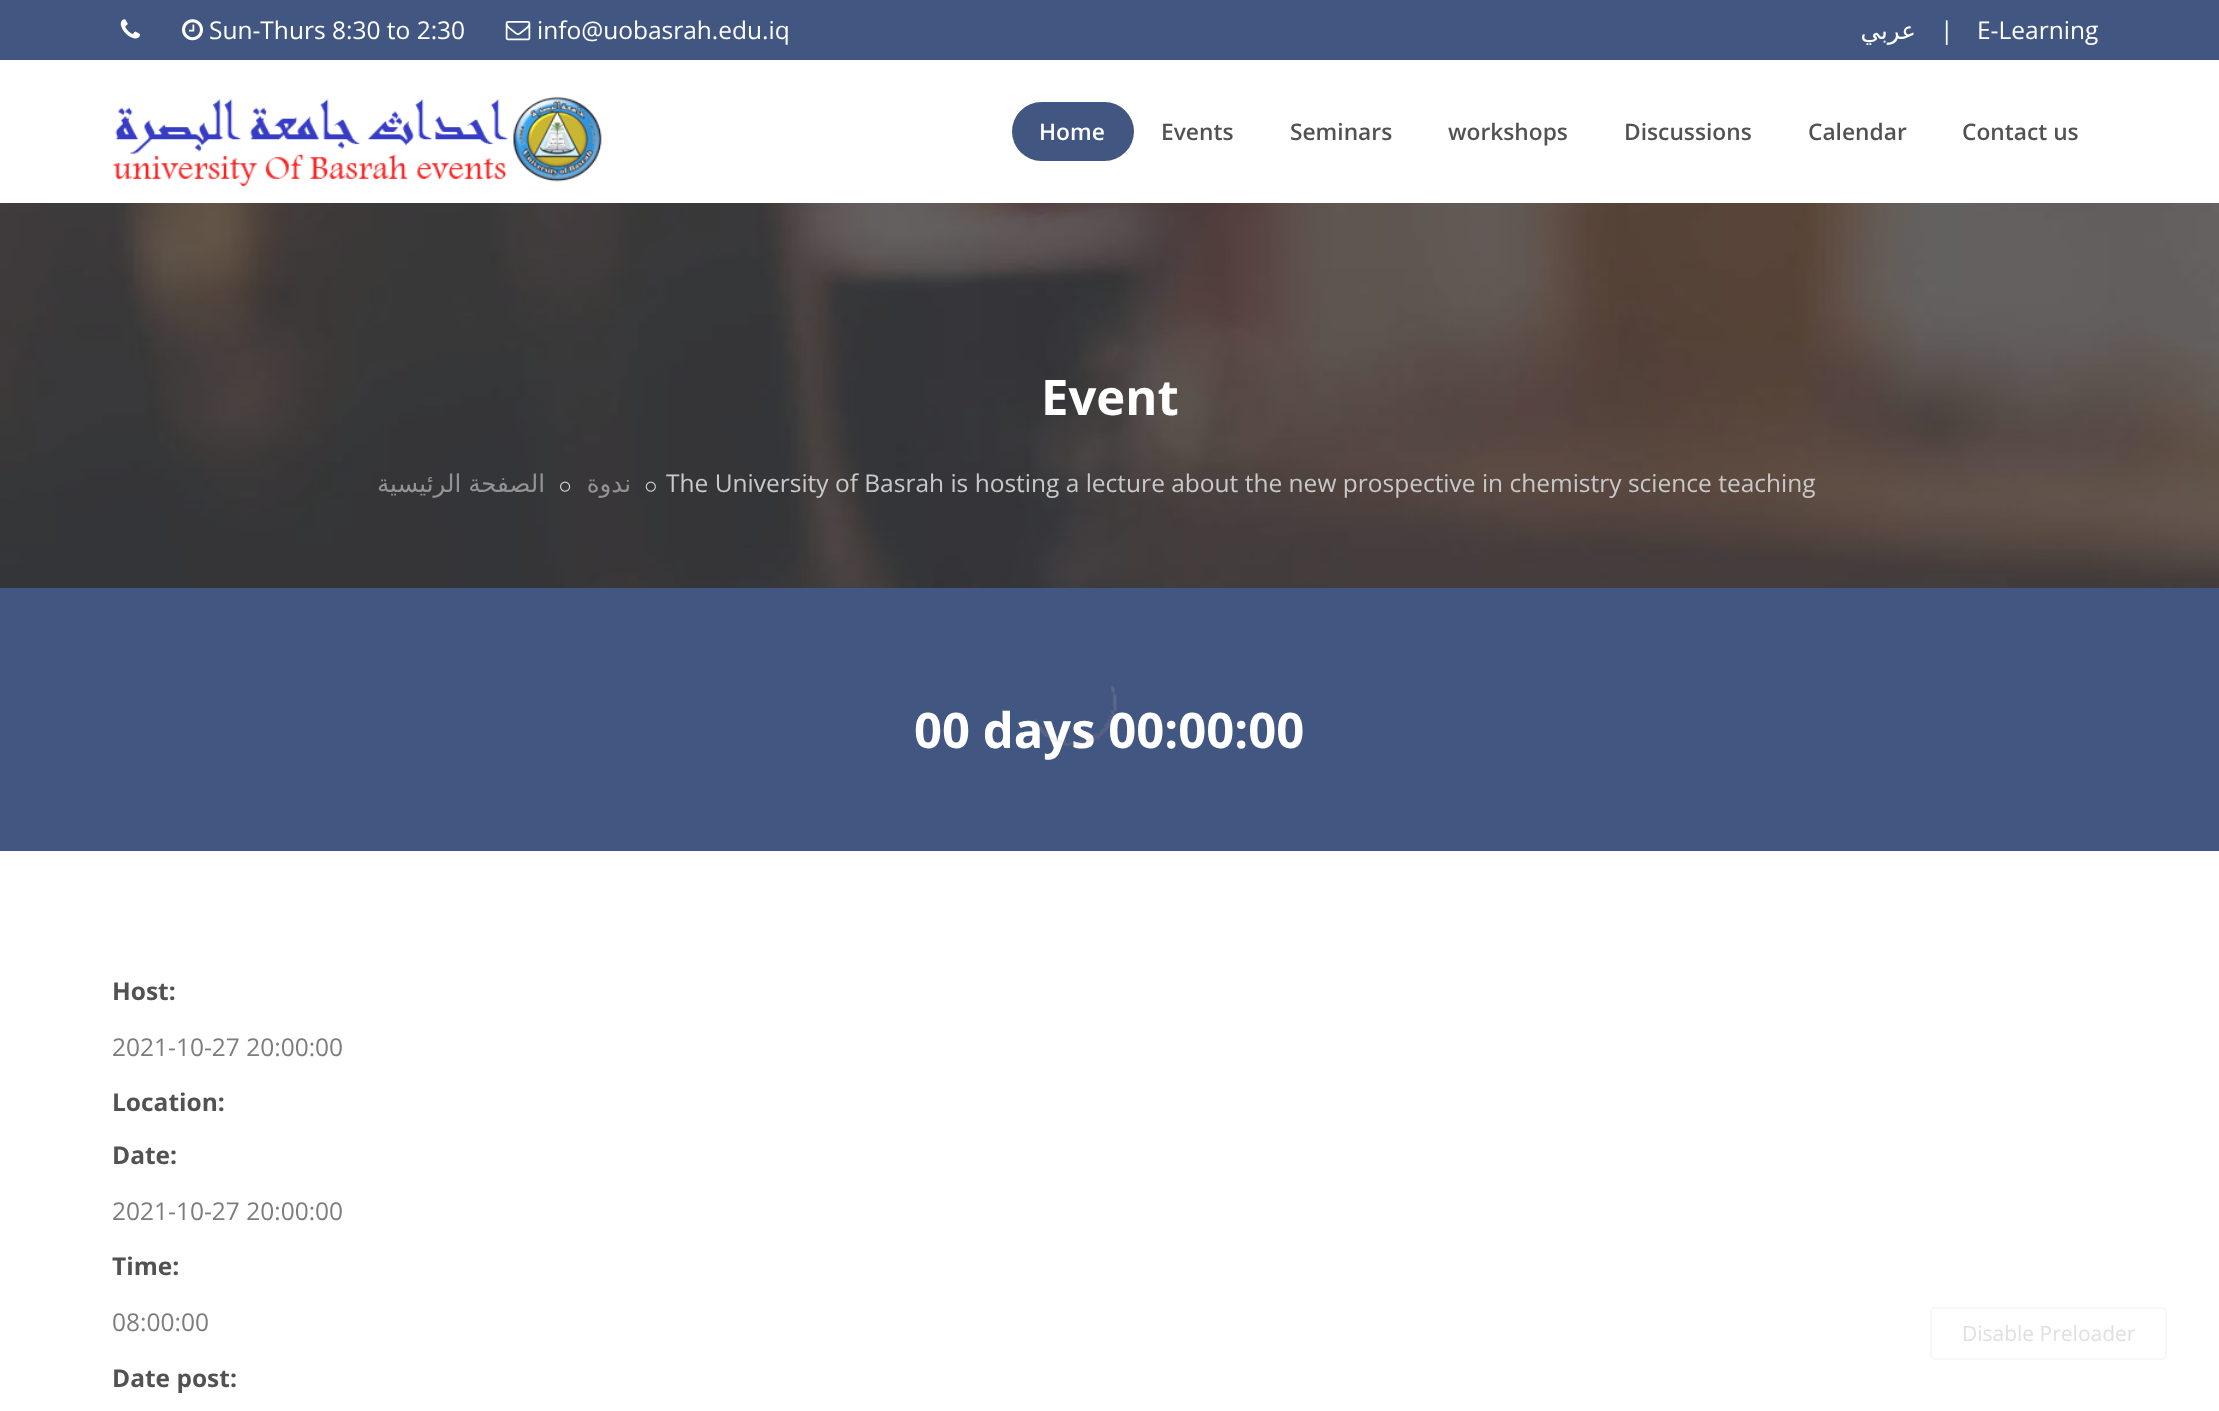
<?xml version="1.0" encoding="UTF-8"?>
<svg xmlns="http://www.w3.org/2000/svg" xmlns:xlink="http://www.w3.org/1999/xlink" width="2219" height="1411">
  <rect width="100%" height="100%" fill="#ffffff" />
  <rect width="2219" height="60" fill="#415681" />
  <image x="120" y="19" width="20" height="20" xlink:href="image1.png" />
  <image x="182" y="19" width="21" height="22" xlink:href="image2.png" />
  <image x="505" y="21" width="26" height="20" xlink:href="image3.png" />
  <image x="113" y="96" width="489" height="91" xlink:href="image4.png" />
  <rect x="1012" y="102" width="122" height="59" rx="29.5" fill="#415681" />
  <image x="0" y="203" width="2219" height="385" xlink:href="image5.png" />
  <image x="560" y="481" width="11" height="11" xlink:href="image6.png" />
  <image x="645" y="481" width="11" height="11" xlink:href="image7.png" />
  <rect y="588" width="2219" height="263" fill="#415681" />
  <rect x="1931" y="1308" width="235" height="51" rx="4" fill="none" stroke="#f7f7f7" stroke-width="2" />
  <text x="209" y="39" style="font-family: Open Sans; font-size: 24.5px; fill: #ffffff">Sun-Thurs 8:30 to 2:30</text>
  <text x="537" y="39" style="font-family: Open Sans; font-size: 24.5px; fill: #ffffff">info@uobasrah.edu.iq</text>
  <text x="1916" y="39" style="font-family: DejaVu Sans; font-size: 24.5px; direction: rtl; fill: #ffffff">عربي</text>
  <text x="1940" y="39" style="font-family: Open Sans; font-size: 24.5px; fill: #ffffff">|</text>
  <text x="1977" y="39" style="font-family: Open Sans; font-size: 24.5px; fill: #ffffff">E-Learning</text>
  <text x="1039" y="140" style="font-family: Open Sans; font-size: 22.75px; font-weight: 600; fill: #ffffff">Home</text>
  <text x="1161" y="140" style="font-family: Open Sans; font-size: 22.75px; font-weight: 600; fill: #525252">Events</text>
  <text x="1290" y="140" style="font-family: Open Sans; font-size: 22.75px; font-weight: 600; fill: #525252">Seminars</text>
  <text x="1448" y="140" style="font-family: Open Sans; font-size: 22.75px; font-weight: 600; fill: #525252">workshops</text>
  <text x="1624" y="140" style="font-family: Open Sans; font-size: 22.75px; font-weight: 600; fill: #525252">Discussions</text>
  <text x="1808" y="140" style="font-family: Open Sans; font-size: 22.75px; font-weight: 600; fill: #525252">Calendar</text>
  <text x="1962" y="140" style="font-family: Open Sans; font-size: 22.75px; font-weight: 600; fill: #525252">Contact us</text>
  <text x="1041" y="415" style="font-family: Open Sans; font-size: 49px; font-weight: bold; fill: #ffffff">Event</text>
  <text x="545" y="492" word-spacing="-1" style="font-family: DejaVu Sans; font-size: 24.5px; direction: rtl; fill: #939393">الصفحة الرئيسية</text>
  <text x="631" y="492" style="font-family: DejaVu Sans; font-size: 24.5px; direction: rtl; fill: #939393">ندوة</text>
  <text x="666" y="492" style="font-family: Open Sans; font-size: 24.5px; fill: #c9c9c9">The University of Basrah is hosting a lecture about the new prospective in chemistry science teaching</text>
  <text x="914" y="748" style="font-family: Open Sans; font-size: 49px; font-weight: bold; fill: #ffffff">00 days 00:00:00</text>
  <text x="112" y="1000" style="font-family: Open Sans; font-size: 24.5px; font-weight: bold; fill: #525252">Host:</text>
  <text x="112" y="1056" style="font-family: Open Sans; font-size: 24.5px; fill: #7d7d7d">2021-10-27 20:00:00</text>
  <text x="112" y="1111" style="font-family: Open Sans; font-size: 24.5px; font-weight: bold; fill: #525252">Location:</text>
  <text x="112" y="1164" style="font-family: Open Sans; font-size: 24.5px; font-weight: bold; fill: #525252">Date:</text>
  <text x="112" y="1220" style="font-family: Open Sans; font-size: 24.5px; fill: #7d7d7d">2021-10-27 20:00:00</text>
  <text x="112" y="1275" style="font-family: Open Sans; font-size: 24.5px; font-weight: bold; fill: #525252">Time:</text>
  <text x="112" y="1331" style="font-family: Open Sans; font-size: 24.5px; fill: #7d7d7d">08:00:00</text>
  <text x="112" y="1387" style="font-family: Open Sans; font-size: 24.5px; font-weight: bold; fill: #525252">Date post:</text>
  <image x="1034" y="685" width="83" height="61" xlink:href="image8.png" />
  <text x="1962" y="1341" style="font-family: Open Sans; font-size: 21px; fill: #e0e0e0">Disable Preloader</text>
</svg>
